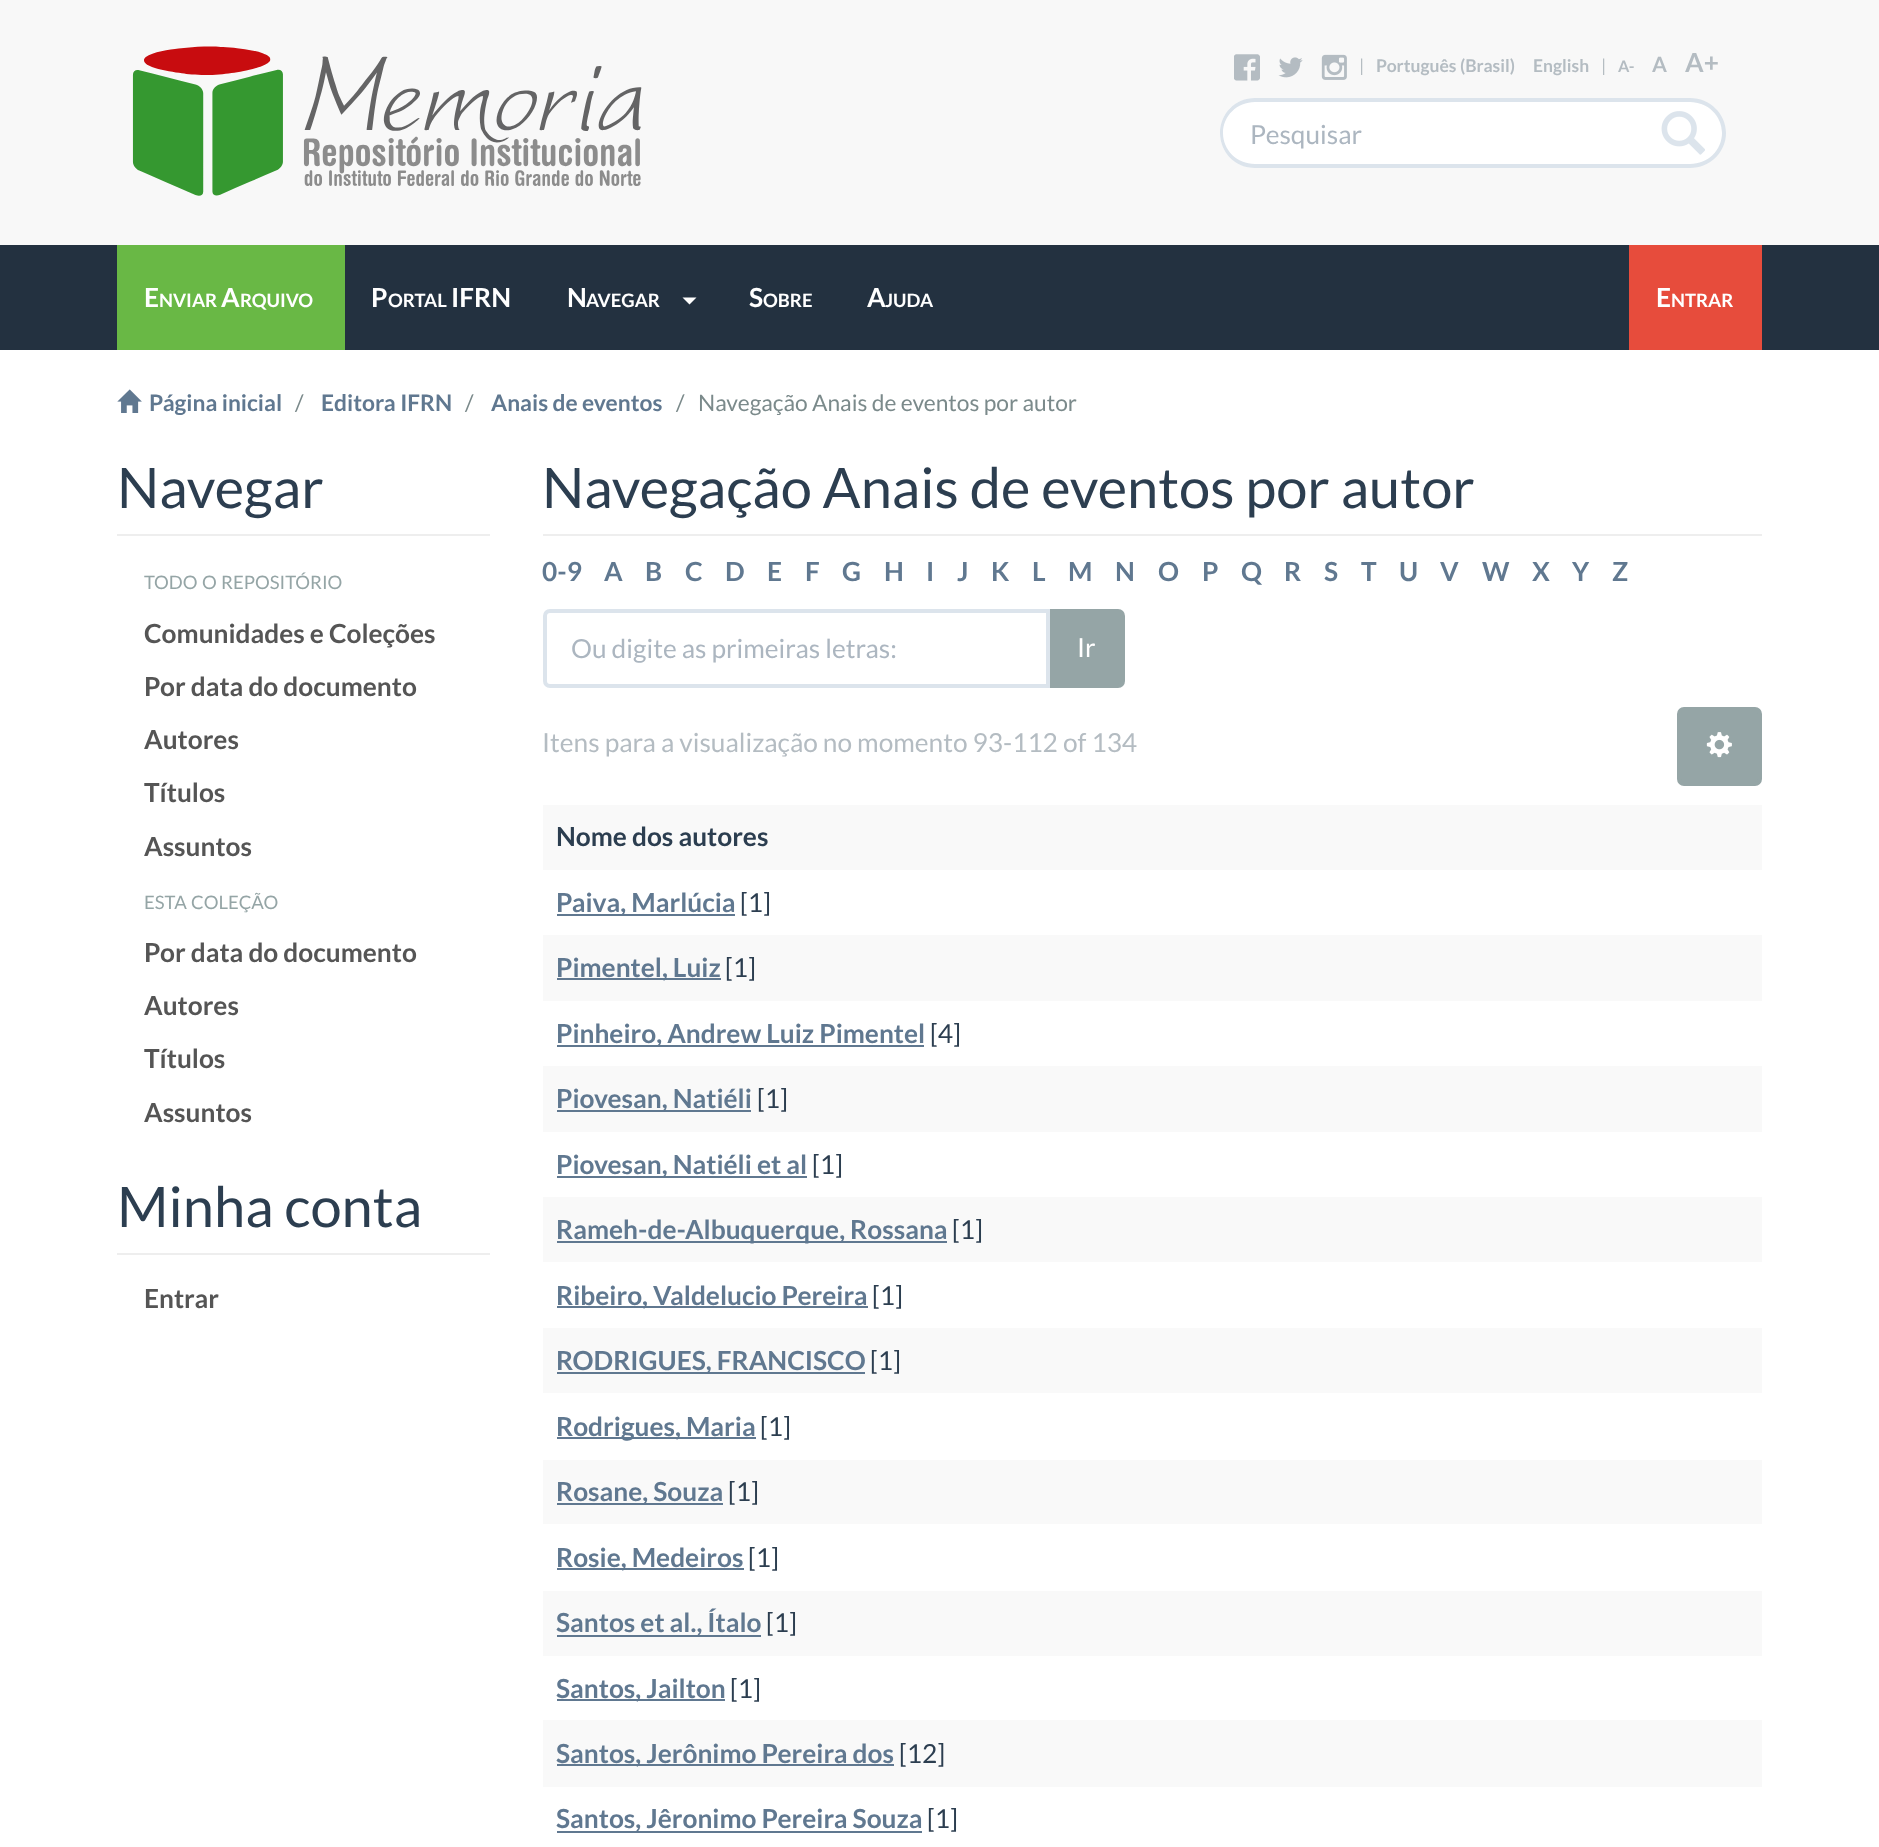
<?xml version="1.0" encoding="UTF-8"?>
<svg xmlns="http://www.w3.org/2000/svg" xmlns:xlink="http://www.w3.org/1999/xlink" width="1879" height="1847">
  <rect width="100%" height="100%" fill="#ffffff" />
  <rect width="1879" height="245" fill="#f8f8f8" />
  <image x="132" y="46" width="510" height="150" xlink:href="image1.png" />
  <image x="1234" y="54" width="26" height="27" xlink:href="image2.png" />
  <image x="1278" y="57" width="25" height="21" xlink:href="image3.png" />
  <image x="1321" y="54" width="26" height="26" xlink:href="image4.png" />
  <path d="M 1643 102 h 47.5 c 17.5 0 31.5 14 31.5 31.5 c 0 17.5 -14 31.5 -31.5 31.5 h -47.5 z" fill="#ffffff" />
  <path d="M 1643 98 h 47 c 20 0 36 16 36 35 c 0 19 -16 35 -36 35 h -47 z m 0 4 h 47 c 18 0 32 14 32 31 c 0 17 -14 31 -32 31 h -47 z" fill="#dce4ec" fill-rule="evenodd" />
  <path d="M 1255 98 h 392 v 70 h -392 c -19.5 0 -35 -15.5 -35 -35 c 0 -19.5 15.5 -35 35 -35 z" fill="#ffffff" />
  <path d="M 1255 98 h 392 v 70 h -392 c -20 0 -35 -16 -35 -35 c 0 -19 15 -35 35 -35 z m 0 4 h 392 v 62 h -392 c -18 0 -32 -14 -32 -31 c 0 -17 14 -31 32 -31 z" fill="#dce4ec" fill-rule="evenodd" />
  <image x="1661" y="111" width="44" height="44" xlink:href="image5.png" />
  <rect y="245" width="1879" height="105" fill="#233140" />
  <rect x="117" y="245" width="228" height="105" fill="#69b845" />
  <path d="M 682.5 297.5 h 14 l -7 7 z" fill="#ffffff" />
  <rect x="1629" y="245" width="133" height="105" fill="#e74c3c" />
  <image x="117" y="389" width="25" height="24" xlink:href="image6.png" />
  <rect x="117" y="534" width="373" height="2" fill="#eeeeee" />
  <rect x="117" y="1253" width="373" height="2" fill="#eeeeee" />
  <rect x="543" y="534" width="1219" height="2" fill="#eeeeee" />
  <path d="M 1050 611 h 68 c 3 0 5 2 5 5 v 65 c 0 3 -2 5 -5 5 h -68 z" fill="#95a5a6" stroke="#95a5a6" stroke-width="4" />
  <path d="M 550 611 h 498 v 75 h -498 c -3 0 -5 -2 -5 -5 v -65 c 0 -3 2 -5 5 -5 z" fill="#ffffff" stroke="#dce4ec" stroke-width="4" />
  <rect x="1679" y="709" width="81" height="75" rx="5" fill="#95a5a6" stroke="#95a5a6" stroke-width="4" />
  <image x="1706" y="732" width="26" height="26" xlink:href="image7.png" />
  <rect x="543" y="805" width="1219" height="65" fill="#f9f9f9" />
  <rect x="557" y="914" width="178" height="2" fill="#607890" />
  <rect x="543" y="935" width="1219" height="66" fill="#f9f9f9" />
  <rect x="557" y="978" width="164" height="2" fill="#607890" />
  <rect x="557" y="1045" width="367" height="2" fill="#607890" />
  <rect x="543" y="1066" width="1219" height="66" fill="#f9f9f9" />
  <rect x="557" y="1110" width="194" height="2" fill="#607890" />
  <rect x="557" y="1176" width="250" height="2" fill="#607890" />
  <rect x="543" y="1197" width="1219" height="65" fill="#f9f9f9" />
  <rect x="557" y="1241" width="390" height="2" fill="#607890" />
  <rect x="557" y="1306" width="311" height="2" fill="#607890" />
  <rect x="543" y="1328" width="1219" height="65" fill="#f9f9f9" />
  <rect x="557" y="1372" width="308" height="2" fill="#607890" />
  <rect x="557" y="1437" width="199" height="2" fill="#607890" />
  <rect x="543" y="1460" width="1219" height="64" fill="#f9f9f9" />
  <rect x="557" y="1503" width="166" height="2" fill="#607890" />
  <rect x="557" y="1568" width="187" height="2" fill="#607890" />
  <rect x="543" y="1591" width="1219" height="65" fill="#f9f9f9" />
  <rect x="557" y="1635" width="204" height="2" fill="#607890" />
  <rect x="557" y="1699" width="168" height="2" fill="#607890" />
  <rect x="543" y="1720" width="1219" height="67" fill="#f9f9f9" />
  <rect x="557" y="1764" width="337" height="2" fill="#607890" />
  <rect x="557" y="1831" width="365" height="2" fill="#607890" />
  <text x="1359" y="72" style="font-family: Lato; font-size: 17.5px; fill: #b4bcc2">|</text>
  <text x="1376" y="72" style="font-family: Lato; font-size: 17.5px; font-weight: bold; fill: #b4bcc2">Português (Brasil)</text>
  <text x="1533" y="72" style="font-family: Lato; font-size: 17.5px; font-weight: bold; fill: #b4bcc2">English</text>
  <text x="1601" y="72" style="font-family: Lato; font-size: 17.5px; fill: #b4bcc2">|</text>
  <text x="1618" y="72" style="font-family: Lato; font-size: 16px; font-weight: bold; fill: #b4bcc2">A-</text>
  <text x="1652" y="72" style="font-family: Lato; font-size: 21px; font-weight: bold; fill: #b4bcc2">A</text>
  <text x="1685" y="72" style="font-family: Lato; font-size: 26.25px; font-weight: bold; fill: #b4bcc2">A+</text>
  <text x="1250" y="144" style="font-family: Lato; font-size: 26.25px; fill: #acb6c0">Pesquisar</text>
  <text x="144" y="307" style="font-family: Lato; font-size: 26.25px; font-weight: bold; fill: #ffffff">E</text>
  <text x="159" y="307" style="font-family: Lato; font-size: 18.5px; font-weight: bold; fill: #ffffff">NVIAR</text>
  <text x="221" y="307" style="font-family: Lato; font-size: 26.25px; font-weight: bold; fill: #ffffff">A</text>
  <text x="240" y="307" style="font-family: Lato; font-size: 18.5px; font-weight: bold; fill: #ffffff">RQUIVO</text>
  <text x="371" y="307" style="font-family: Lato; font-size: 26.25px; font-weight: bold; fill: #ffffff">P</text>
  <text x="388" y="307" style="font-family: Lato; font-size: 18.5px; font-weight: bold; fill: #ffffff">ORTAL</text>
  <text x="451" y="307" style="font-family: Lato; font-size: 26.25px; font-weight: bold; fill: #ffffff">IFRN</text>
  <text x="567" y="307" style="font-family: Lato; font-size: 26.25px; font-weight: bold; fill: #ffffff">N</text>
  <text x="586" y="307" style="font-family: Lato; font-size: 18.5px; font-weight: bold; fill: #ffffff">AVEGAR</text>
  <text x="749" y="307" style="font-family: Lato; font-size: 26.25px; font-weight: bold; fill: #ffffff">S</text>
  <text x="763" y="307" style="font-family: Lato; font-size: 18.5px; font-weight: bold; fill: #ffffff">OBRE</text>
  <text x="867" y="307" style="font-family: Lato; font-size: 26.25px; font-weight: bold; fill: #ffffff">A</text>
  <text x="885" y="307" style="font-family: Lato; font-size: 18.5px; font-weight: bold; fill: #ffffff">JUDA</text>
  <text x="1656" y="307" style="font-family: Lato; font-size: 26.25px; font-weight: bold; fill: #ffffff">E</text>
  <text x="1671" y="307" style="font-family: Lato; font-size: 18.5px; font-weight: bold; fill: #ffffff">NTRAR</text>
  <text x="149" y="411" style="font-family: Lato; font-size: 22.75px; font-weight: bold; fill: #607890">Página inicial</text>
  <text x="295" y="411" style="font-family: Lato; font-size: 22.75px; fill: #7b8a8b">/</text>
  <text x="321" y="411" style="font-family: Lato; font-size: 22.75px; font-weight: bold; fill: #607890">Editora IFRN</text>
  <text x="465" y="411" style="font-family: Lato; font-size: 22.75px; fill: #7b8a8b">/</text>
  <text x="491" y="411" style="font-family: Lato; font-size: 22.75px; font-weight: bold; fill: #607890">Anais de eventos</text>
  <text x="676" y="411" style="font-family: Lato; font-size: 22.75px; fill: #7b8a8b">/</text>
  <text x="698" y="411" style="font-family: Lato; font-size: 22.75px; fill: #7b8a8b">Navegação Anais de eventos por autor</text>
  <text x="117" y="508" style="font-family: Lato; font-size: 56px; fill: #2c3e50">Navegar</text>
  <text x="144" y="589" style="font-family: Lato; font-size: 18.5px; fill: #95a5a6">TODO</text>
  <text x="202" y="589" style="font-family: Lato; font-size: 18.5px; fill: #95a5a6">O</text>
  <text x="221" y="589" style="font-family: Lato; font-size: 18.5px; fill: #95a5a6">REPOSITÓRIO</text>
  <text x="144" y="643" style="font-family: Lato; font-size: 26.25px; font-weight: bold; fill: #555555">Comunidades e Coleções</text>
  <text x="144" y="696" style="font-family: Lato; font-size: 26.25px; font-weight: bold; fill: #555555">Por data do documento</text>
  <text x="144" y="749" style="font-family: Lato; font-size: 26.25px; font-weight: bold; fill: #555555">Autores</text>
  <text x="144" y="802" style="font-family: Lato; font-size: 26.25px; font-weight: bold; fill: #555555">Títulos</text>
  <text x="144" y="856" style="font-family: Lato; font-size: 26.25px; font-weight: bold; fill: #555555">Assuntos</text>
  <text x="144" y="909" style="font-family: Lato; font-size: 18.5px; fill: #95a5a6">ESTA</text>
  <text x="191" y="909" style="font-family: Lato; font-size: 18.5px; fill: #95a5a6">COLEÇÃO</text>
  <text x="144" y="962" style="font-family: Lato; font-size: 26.25px; font-weight: bold; fill: #555555">Por data do documento</text>
  <text x="144" y="1015" style="font-family: Lato; font-size: 26.25px; font-weight: bold; fill: #555555">Autores</text>
  <text x="144" y="1068" style="font-family: Lato; font-size: 26.25px; font-weight: bold; fill: #555555">Títulos</text>
  <text x="144" y="1122" style="font-family: Lato; font-size: 26.25px; font-weight: bold; fill: #555555">Assuntos</text>
  <text x="117" y="1227" style="font-family: Lato; font-size: 56px; fill: #2c3e50">Minha conta</text>
  <text x="144" y="1308" style="font-family: Lato; font-size: 26.25px; font-weight: bold; fill: #555555">Entrar</text>
  <text x="542" y="508" style="font-family: Lato; font-size: 56px; fill: #2c3e50">Navegação Anais de eventos por autor</text>
  <text x="542" y="581" style="font-family: Lato; font-size: 26.25px; font-weight: bold; fill: #607890">0-9</text>
  <text x="604" y="581" style="font-family: Lato; font-size: 26.25px; font-weight: bold; fill: #607890">A</text>
  <text x="645" y="581" style="font-family: Lato; font-size: 26.25px; font-weight: bold; fill: #607890">B</text>
  <text x="685" y="581" style="font-family: Lato; font-size: 26.25px; font-weight: bold; fill: #607890">C</text>
  <text x="725" y="581" style="font-family: Lato; font-size: 26.25px; font-weight: bold; fill: #607890">D</text>
  <text x="767" y="581" style="font-family: Lato; font-size: 26.25px; font-weight: bold; fill: #607890">E</text>
  <text x="805" y="581" style="font-family: Lato; font-size: 26.25px; font-weight: bold; fill: #607890">F</text>
  <text x="842" y="581" style="font-family: Lato; font-size: 26.25px; font-weight: bold; fill: #607890">G</text>
  <text x="884" y="581" style="font-family: Lato; font-size: 26.25px; font-weight: bold; fill: #607890">H</text>
  <text x="926" y="581" style="font-family: Lato; font-size: 26.25px; font-weight: bold; fill: #607890">I</text>
  <text x="957" y="581" style="font-family: Lato; font-size: 26.25px; font-weight: bold; fill: #607890">J</text>
  <text x="991" y="581" style="font-family: Lato; font-size: 26.25px; font-weight: bold; fill: #607890">K</text>
  <text x="1032" y="581" style="font-family: Lato; font-size: 26.25px; font-weight: bold; fill: #607890">L</text>
  <text x="1068" y="581" style="font-family: Lato; font-size: 26.25px; font-weight: bold; fill: #607890">M</text>
  <text x="1115" y="581" style="font-family: Lato; font-size: 26.25px; font-weight: bold; fill: #607890">N</text>
  <text x="1158" y="581" style="font-family: Lato; font-size: 26.25px; font-weight: bold; fill: #607890">O</text>
  <text x="1202" y="581" style="font-family: Lato; font-size: 26.25px; font-weight: bold; fill: #607890">P</text>
  <text x="1241" y="581" style="font-family: Lato; font-size: 26.25px; font-weight: bold; fill: #607890">Q</text>
  <text x="1284" y="581" style="font-family: Lato; font-size: 26.25px; font-weight: bold; fill: #607890">R</text>
  <text x="1324" y="581" style="font-family: Lato; font-size: 26.25px; font-weight: bold; fill: #607890">S</text>
  <text x="1361" y="581" style="font-family: Lato; font-size: 26.25px; font-weight: bold; fill: #607890">T</text>
  <text x="1399" y="581" style="font-family: Lato; font-size: 26.25px; font-weight: bold; fill: #607890">U</text>
  <text x="1440" y="581" style="font-family: Lato; font-size: 26.25px; font-weight: bold; fill: #607890">V</text>
  <text x="1482" y="581" style="font-family: Lato; font-size: 26.25px; font-weight: bold; fill: #607890">W</text>
  <text x="1532" y="581" style="font-family: Lato; font-size: 26.25px; font-weight: bold; fill: #607890">X</text>
  <text x="1572" y="581" style="font-family: Lato; font-size: 26.25px; font-weight: bold; fill: #607890">Y</text>
  <text x="1612" y="581" style="font-family: Lato; font-size: 26.25px; font-weight: bold; fill: #607890">Z</text>
  <text x="571" y="658" style="font-family: Lato; font-size: 26.25px; fill: #acb6c0">Ou digite as primeiras letras:</text>
  <text x="1077" y="657" style="font-family: Lato; font-size: 26.25px; fill: #ffffff">Ir</text>
  <text x="542" y="752" style="font-family: Lato; font-size: 26.25px; fill: #b4bcc2">Itens para a visualização no momento 93-112 of 134</text>
  <text x="556" y="846" style="font-family: Lato; font-size: 26.25px; font-weight: bold; fill: #2c3e50">Nome dos autores</text>
  <text x="556" y="912" style="font-family: Lato; font-size: 26.25px; font-weight: bold; fill: #607890">Paiva, Marlúcia</text>
  <text x="740" y="912" style="font-family: Lato; font-size: 26.25px; fill: #2c3e50">[1]</text>
  <text x="556" y="977" style="font-family: Lato; font-size: 26.25px; font-weight: bold; fill: #607890">Pimentel, Luiz</text>
  <text x="725" y="977" style="font-family: Lato; font-size: 26.25px; fill: #2c3e50">[1]</text>
  <text x="556" y="1043" style="font-family: Lato; font-size: 26.25px; font-weight: bold; fill: #607890">Pinheiro, Andrew Luiz Pimentel</text>
  <text x="930" y="1043" style="font-family: Lato; font-size: 26.25px; fill: #2c3e50">[4]</text>
  <text x="556" y="1108" style="font-family: Lato; font-size: 26.25px; font-weight: bold; fill: #607890">Piovesan, Natiéli</text>
  <text x="757" y="1108" style="font-family: Lato; font-size: 26.25px; fill: #2c3e50">[1]</text>
  <text x="556" y="1174" style="font-family: Lato; font-size: 26.25px; font-weight: bold; fill: #607890">Piovesan, Natiéli et al</text>
  <text x="812" y="1174" style="font-family: Lato; font-size: 26.25px; fill: #2c3e50">[1]</text>
  <text x="556" y="1239" style="font-family: Lato; font-size: 26.25px; font-weight: bold; fill: #607890">Rameh-de-Albuquerque, Rossana</text>
  <text x="952" y="1239" style="font-family: Lato; font-size: 26.25px; fill: #2c3e50">[1]</text>
  <text x="556" y="1305" style="font-family: Lato; font-size: 26.25px; font-weight: bold; fill: #607890">Ribeiro, Valdelucio Pereira</text>
  <text x="872" y="1305" style="font-family: Lato; font-size: 26.25px; fill: #2c3e50">[1]</text>
  <text x="556" y="1370" style="font-family: Lato; font-size: 26.25px; font-weight: bold; fill: #607890">RODRIGUES, FRANCISCO</text>
  <text x="870" y="1370" style="font-family: Lato; font-size: 26.25px; fill: #2c3e50">[1]</text>
  <text x="556" y="1436" style="font-family: Lato; font-size: 26.25px; font-weight: bold; fill: #607890">Rodrigues, Maria</text>
  <text x="760" y="1436" style="font-family: Lato; font-size: 26.25px; fill: #2c3e50">[1]</text>
  <text x="556" y="1501" style="font-family: Lato; font-size: 26.25px; font-weight: bold; fill: #607890">Rosane, Souza</text>
  <text x="728" y="1501" style="font-family: Lato; font-size: 26.25px; fill: #2c3e50">[1]</text>
  <text x="556" y="1567" style="font-family: Lato; font-size: 26.25px; font-weight: bold; fill: #607890">Rosie, Medeiros</text>
  <text x="748" y="1567" style="font-family: Lato; font-size: 26.25px; fill: #2c3e50">[1]</text>
  <text x="556" y="1632" style="font-family: Lato; font-size: 26.25px; font-weight: bold; fill: #607890">Santos et al., Ítalo</text>
  <text x="766" y="1632" style="font-family: Lato; font-size: 26.25px; fill: #2c3e50">[1]</text>
  <text x="556" y="1698" style="font-family: Lato; font-size: 26.25px; font-weight: bold; fill: #607890">Santos, Jailton</text>
  <text x="730" y="1698" style="font-family: Lato; font-size: 26.25px; fill: #2c3e50">[1]</text>
  <text x="556" y="1763" style="font-family: Lato; font-size: 26.25px; font-weight: bold; fill: #607890">Santos, Jerônimo Pereira dos</text>
  <text x="899" y="1763" style="font-family: Lato; font-size: 26.25px; fill: #2c3e50">[12]</text>
  <text x="556" y="1828" style="font-family: Lato; font-size: 26.25px; font-weight: bold; fill: #607890">Santos, Jêronimo Pereira Souza</text>
  <text x="927" y="1828" style="font-family: Lato; font-size: 26.25px; fill: #2c3e50">[1]</text>
</svg>
